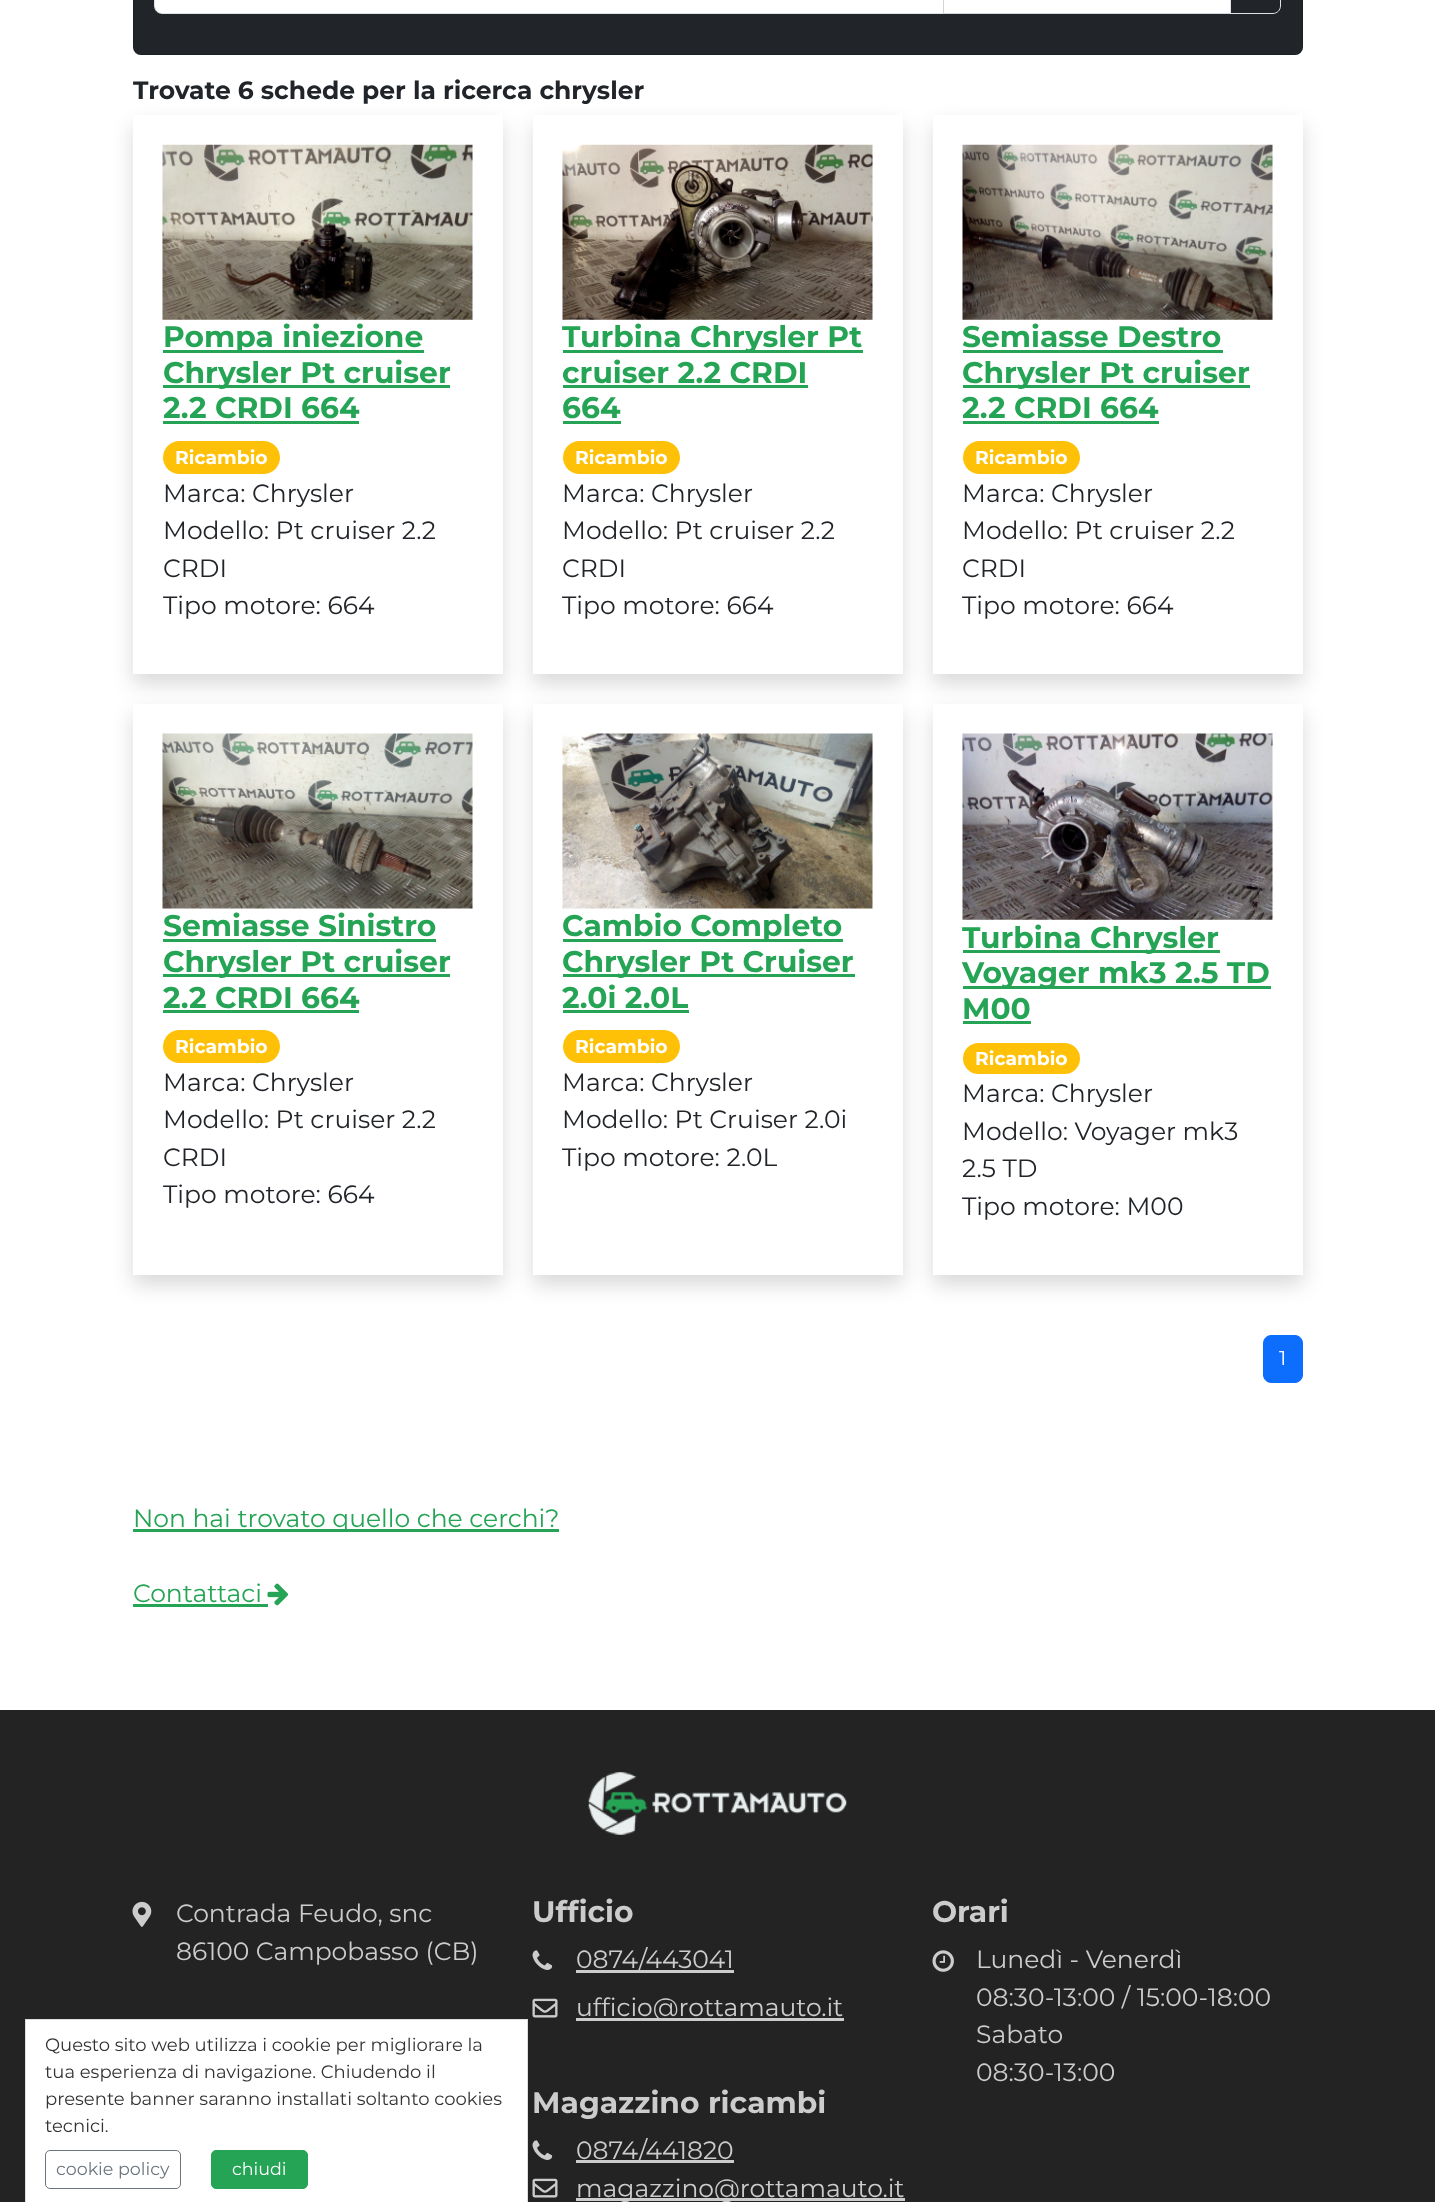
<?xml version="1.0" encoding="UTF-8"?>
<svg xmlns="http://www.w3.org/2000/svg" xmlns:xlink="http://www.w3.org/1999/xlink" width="1435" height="2202">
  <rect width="100%" height="100%" fill="#ffffff" />
  <rect x="133" y="-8" width="1170" height="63" rx="8" fill="#212529" />
  <rect x="133.5" y="-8.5" width="1169" height="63" rx="7.5" fill="none" stroke="#000000" stroke-opacity="0.18" />
  <path d="M 161 -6 h 782 v 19 h -782 c -3.5 0 -6 -2.5 -6 -6 v -7 c 0 -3.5 2.5 -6 6 -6 z" fill="#ffffff" />
  <path d="M 162 -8.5 h 781.5 v 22 h -781.5 c -4 0 -7.5 -3.5 -7.5 -7.5 v -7 c 0 -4 3.5 -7.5 7.5 -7.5 z" fill="none" stroke="#dee2e6" />
  <rect x="943.5" y="-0.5" width="287" height="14" fill="#ffffff" stroke="#ced4da" />
  <path d="M 1230.5 -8.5 h 42.5 c 4 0 7.5 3.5 7.5 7.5 v 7 c 0 4 -3.5 7.5 -7.5 7.5 h -42.5 z" fill="none" stroke="#dee2e6" />
  <rect x="133" y="125" width="370" height="559" fill="#000000" fill-opacity="0.15" filter="blur(10px)" />
  <rect x="133" y="115" width="370" height="559" fill="#ffffff" />
  <image x="162" y="144" width="311" height="176" xlink:href="image1.png" />
  <rect x="163" y="350" width="261" height="3" fill="#26a455" />
  <rect x="163" y="385" width="287" height="3" fill="#26a455" />
  <rect x="163" y="421" width="196" height="3" fill="#26a455" />
  <rect x="163" y="441" width="117" height="33" rx="16.5" fill="#ffc107" />
  <rect x="533" y="125" width="370" height="559" fill="#000000" fill-opacity="0.15" filter="blur(10px)" />
  <rect x="533" y="115" width="370" height="559" fill="#ffffff" />
  <image x="562" y="144" width="311" height="176" xlink:href="image2.png" />
  <rect x="563" y="350" width="300" height="3" fill="#26a455" />
  <rect x="563" y="385" width="245" height="3" fill="#26a455" />
  <rect x="563" y="421" width="58" height="3" fill="#26a455" />
  <rect x="563" y="441" width="117" height="33" rx="16.5" fill="#ffc107" />
  <rect x="933" y="125" width="370" height="559" fill="#000000" fill-opacity="0.15" filter="blur(10px)" />
  <rect x="933" y="115" width="370" height="559" fill="#ffffff" />
  <image x="962" y="144" width="311" height="176" xlink:href="image3.png" />
  <rect x="963" y="350" width="260" height="3" fill="#26a455" />
  <rect x="963" y="385" width="287" height="3" fill="#26a455" />
  <rect x="963" y="421" width="196" height="3" fill="#26a455" />
  <rect x="963" y="441" width="117" height="33" rx="16.5" fill="#ffc107" />
  <rect x="133" y="714" width="370" height="571" fill="#000000" fill-opacity="0.15" filter="blur(10px)" />
  <rect x="133" y="704" width="370" height="571" fill="#ffffff" />
  <image x="162" y="733" width="311" height="176" xlink:href="image4.png" />
  <rect x="163" y="939" width="273" height="3" fill="#26a455" />
  <rect x="163" y="974" width="287" height="3" fill="#26a455" />
  <rect x="163" y="1010" width="196" height="3" fill="#26a455" />
  <rect x="163" y="1030" width="117" height="33" rx="16.5" fill="#ffc107" />
  <rect x="533" y="714" width="370" height="571" fill="#000000" fill-opacity="0.15" filter="blur(10px)" />
  <rect x="533" y="704" width="370" height="571" fill="#ffffff" />
  <image x="562" y="733" width="311" height="176" xlink:href="image5.png" />
  <rect x="563" y="939" width="280" height="3" fill="#26a455" />
  <rect x="563" y="974" width="292" height="3" fill="#26a455" />
  <rect x="563" y="1010" width="126" height="3" fill="#26a455" />
  <rect x="563" y="1030" width="117" height="33" rx="16.5" fill="#ffc107" />
  <rect x="933" y="714" width="370" height="571" fill="#000000" fill-opacity="0.15" filter="blur(10px)" />
  <rect x="933" y="704" width="370" height="571" fill="#ffffff" />
  <image x="962" y="733" width="311" height="187" xlink:href="image6.png" />
  <rect x="963" y="950" width="257" height="3" fill="#26a455" />
  <rect x="963" y="986" width="308" height="3" fill="#26a455" />
  <rect x="963" y="1021" width="68" height="3" fill="#26a455" />
  <rect x="963" y="1043" width="117" height="31" rx="15.5" fill="#ffc107" />
  <rect x="1263.5" y="1335.5" width="39" height="47" rx="7.5" fill="#0d6efd" stroke="#0d6efd" />
  <rect x="133" y="1529" width="426" height="3" fill="#26a455" />
  <rect x="133" y="1604" width="135" height="3" fill="#26a455" />
  <image x="267" y="1583" width="21" height="23" xlink:href="image7.png" />
  <rect y="1710" width="1435" height="492" fill="#232323" />
  <image x="588" y="1772" width="259" height="63" xlink:href="image8.png" />
  <image x="132" y="1901" width="20" height="26" xlink:href="image9.png" />
  <image x="532" y="1950" width="21" height="20" xlink:href="image10.png" />
  <rect x="576" y="1970" width="158" height="3" fill="#cccccc" />
  <image x="532" y="1998" width="26" height="20" xlink:href="image11.png" />
  <rect x="576" y="2018" width="268" height="3" fill="#cccccc" />
  <image x="532" y="2140" width="21" height="20" xlink:href="image10.png" />
  <rect x="576" y="2160" width="158" height="3" fill="#cccccc" />
  <image x="532" y="2178" width="26" height="20" xlink:href="image11.png" />
  <rect x="576" y="2198" width="329" height="3" fill="#cccccc" />
  <image x="932" y="1950" width="22" height="22" xlink:href="image12.png" />
  <rect x="25.5" y="2019.5" width="502" height="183" fill="#ffffff" stroke="#dddddd" />
  <rect x="45.5" y="2150.5" width="135" height="38" rx="4.5" fill="none" stroke="#6c757d" />
  <rect x="211.5" y="2150.5" width="96" height="38" rx="4.5" fill="#26a455" stroke="#26a455" />
  <text x="133" y="99" style="font-family: Montserrat; font-size: 25px; font-weight: bold; fill: #212529">Trovate 6 schede per la ricerca chrysler</text>
  <text x="163" y="347" style="font-family: Montserrat; font-size: 29.75px; font-weight: bold; fill: #26a455">Pompa iniezione</text>
  <text x="163" y="383" style="font-family: Montserrat; font-size: 29.75px; font-weight: bold; fill: #26a455">Chrysler Pt cruiser</text>
  <text x="163" y="418" style="font-family: Montserrat; font-size: 29.75px; font-weight: bold; fill: #26a455">2.2 CRDI 664</text>
  <text x="175" y="464" style="font-family: Montserrat; font-size: 18.75px; font-weight: bold; fill: #ffffff">Ricambio</text>
  <text x="163" y="502" style="font-family: Montserrat; font-size: 25px; fill: #212529">Marca: Chrysler</text>
  <text x="163" y="539" style="font-family: Montserrat; font-size: 25px; fill: #212529">Modello: Pt cruiser 2.2</text>
  <text x="163" y="577" style="font-family: Montserrat; font-size: 25px; fill: #212529">CRDI</text>
  <text x="163" y="614" style="font-family: Montserrat; font-size: 25px; fill: #212529">Tipo motore: 664</text>
  <text x="562" y="347" style="font-family: Montserrat; font-size: 29.75px; font-weight: bold; fill: #26a455">Turbina Chrysler Pt</text>
  <text x="562" y="383" style="font-family: Montserrat; font-size: 29.75px; font-weight: bold; fill: #26a455">cruiser 2.2 CRDI</text>
  <text x="562" y="418" style="font-family: Montserrat; font-size: 29.75px; font-weight: bold; fill: #26a455">664</text>
  <text x="575" y="464" style="font-family: Montserrat; font-size: 18.75px; font-weight: bold; fill: #ffffff">Ricambio</text>
  <text x="562" y="502" style="font-family: Montserrat; font-size: 25px; fill: #212529">Marca: Chrysler</text>
  <text x="562" y="539" style="font-family: Montserrat; font-size: 25px; fill: #212529">Modello: Pt cruiser 2.2</text>
  <text x="562" y="577" style="font-family: Montserrat; font-size: 25px; fill: #212529">CRDI</text>
  <text x="562" y="614" style="font-family: Montserrat; font-size: 25px; fill: #212529">Tipo motore: 664</text>
  <text x="962" y="347" style="font-family: Montserrat; font-size: 29.75px; font-weight: bold; fill: #26a455">Semiasse Destro</text>
  <text x="962" y="383" style="font-family: Montserrat; font-size: 29.75px; font-weight: bold; fill: #26a455">Chrysler Pt cruiser</text>
  <text x="962" y="418" style="font-family: Montserrat; font-size: 29.75px; font-weight: bold; fill: #26a455">2.2 CRDI 664</text>
  <text x="975" y="464" style="font-family: Montserrat; font-size: 18.75px; font-weight: bold; fill: #ffffff">Ricambio</text>
  <text x="962" y="502" style="font-family: Montserrat; font-size: 25px; fill: #212529">Marca: Chrysler</text>
  <text x="962" y="539" style="font-family: Montserrat; font-size: 25px; fill: #212529">Modello: Pt cruiser 2.2</text>
  <text x="962" y="577" style="font-family: Montserrat; font-size: 25px; fill: #212529">CRDI</text>
  <text x="962" y="614" style="font-family: Montserrat; font-size: 25px; fill: #212529">Tipo motore: 664</text>
  <text x="163" y="936" style="font-family: Montserrat; font-size: 29.75px; font-weight: bold; fill: #26a455">Semiasse Sinistro</text>
  <text x="163" y="972" style="font-family: Montserrat; font-size: 29.75px; font-weight: bold; fill: #26a455">Chrysler Pt cruiser</text>
  <text x="163" y="1008" style="font-family: Montserrat; font-size: 29.75px; font-weight: bold; fill: #26a455">2.2 CRDI 664</text>
  <text x="175" y="1053" style="font-family: Montserrat; font-size: 18.75px; font-weight: bold; fill: #ffffff">Ricambio</text>
  <text x="163" y="1091" style="font-family: Montserrat; font-size: 25px; fill: #212529">Marca: Chrysler</text>
  <text x="163" y="1128" style="font-family: Montserrat; font-size: 25px; fill: #212529">Modello: Pt cruiser 2.2</text>
  <text x="163" y="1166" style="font-family: Montserrat; font-size: 25px; fill: #212529">CRDI</text>
  <text x="163" y="1203" style="font-family: Montserrat; font-size: 25px; fill: #212529">Tipo motore: 664</text>
  <text x="562" y="936" style="font-family: Montserrat; font-size: 29.75px; font-weight: bold; fill: #26a455">Cambio Completo</text>
  <text x="562" y="972" style="font-family: Montserrat; font-size: 29.75px; font-weight: bold; fill: #26a455">Chrysler Pt Cruiser</text>
  <text x="562" y="1008" style="font-family: Montserrat; font-size: 29.75px; font-weight: bold; fill: #26a455">2.0i 2.0L</text>
  <text x="575" y="1053" style="font-family: Montserrat; font-size: 18.75px; font-weight: bold; fill: #ffffff">Ricambio</text>
  <text x="562" y="1091" style="font-family: Montserrat; font-size: 25px; fill: #212529">Marca: Chrysler</text>
  <text x="562" y="1128" style="font-family: Montserrat; font-size: 25px; fill: #212529">Modello: Pt Cruiser 2.0i</text>
  <text x="562" y="1166" style="font-family: Montserrat; font-size: 25px; fill: #212529">Tipo motore: 2.0L</text>
  <text x="962" y="948" style="font-family: Montserrat; font-size: 29.75px; font-weight: bold; fill: #26a455">Turbina Chrysler</text>
  <text x="962" y="983" style="font-family: Montserrat; font-size: 29.75px; font-weight: bold; fill: #26a455">Voyager mk3 2.5 TD</text>
  <text x="962" y="1019" style="font-family: Montserrat; font-size: 29.75px; font-weight: bold; fill: #26a455">M00</text>
  <text x="975" y="1065" style="font-family: Montserrat; font-size: 18.75px; font-weight: bold; fill: #ffffff">Ricambio</text>
  <text x="962" y="1102" style="font-family: Montserrat; font-size: 25px; fill: #212529">Marca: Chrysler</text>
  <text x="962" y="1140" style="font-family: Montserrat; font-size: 25px; fill: #212529">Modello: Voyager mk3</text>
  <text x="962" y="1177" style="font-family: Montserrat; font-size: 25px; fill: #212529">2.5 TD</text>
  <text x="962" y="1215" style="font-family: Montserrat; font-size: 25px; fill: #212529">Tipo motore: M00</text>
  <text x="1279" y="1365" style="font-family: Montserrat; font-size: 20px; fill: #ffffff">1</text>
  <text x="133" y="1527" style="font-family: Montserrat; font-size: 25px; fill: #26a455">Non hai trovato quello che cerchi?</text>
  <text x="133" y="1602" style="font-family: Montserrat; font-size: 25px; fill: #26a455">Contattaci</text>
  <text x="176" y="1922" style="font-family: Montserrat; font-size: 25px; fill: #cccccc">Contrada Feudo, snc</text>
  <text x="176" y="1960" style="font-family: Montserrat; font-size: 25px; fill: #cccccc">86100 Campobasso (CB)</text>
  <text x="532" y="1922" style="font-family: Montserrat; font-size: 29.75px; font-weight: bold; fill: #cccccc">Ufficio</text>
  <text x="576" y="1968" style="font-family: Montserrat; font-size: 25px; fill: #cccccc">0874/443041</text>
  <text x="576" y="2016" style="font-family: Montserrat; font-size: 25px; fill: #cccccc">ufficio@rottamauto.it</text>
  <text x="532" y="2113" style="font-family: Montserrat; font-size: 29.75px; font-weight: bold; fill: #cccccc">Magazzino ricambi</text>
  <text x="576" y="2159" style="font-family: Montserrat; font-size: 25px; fill: #cccccc">0874/441820</text>
  <text x="576" y="2197" style="font-family: Montserrat; font-size: 25px; fill: #cccccc">magazzino@rottamauto.it</text>
  <text x="932" y="1922" style="font-family: Montserrat; font-size: 29.75px; font-weight: bold; fill: #cccccc">Orari</text>
  <text x="976" y="1968" style="font-family: Montserrat; font-size: 25px; fill: #cccccc">Lunedì - Venerdì</text>
  <text x="976" y="2006" style="font-family: Montserrat; font-size: 25px; fill: #cccccc">08:30-13:00 / 15:00-18:00</text>
  <text x="976" y="2043" style="font-family: Montserrat; font-size: 25px; fill: #cccccc">Sabato</text>
  <text x="976" y="2081" style="font-family: Montserrat; font-size: 25px; fill: #cccccc">08:30-13:00</text>
  <text x="45" y="2051" style="font-family: Montserrat; font-size: 18px; fill: #333333">Questo sito web utilizza i cookie per migliorare la</text>
  <text x="45" y="2078" style="font-family: Montserrat; font-size: 18px; fill: #333333">tua esperienza di navigazione. Chiudendo il</text>
  <text x="45" y="2105" style="font-family: Montserrat; font-size: 18px; fill: #333333">presente banner saranno installati soltanto cookies</text>
  <text x="45" y="2132" style="font-family: Montserrat; font-size: 18px; fill: #333333">tecnici.</text>
  <text x="56" y="2175" style="font-family: Montserrat; font-size: 17.5px; fill: #6c757d">cookie policy</text>
  <text x="232" y="2175" style="font-family: Montserrat; font-size: 17.5px; fill: #ffffff">chiudi</text>
</svg>
